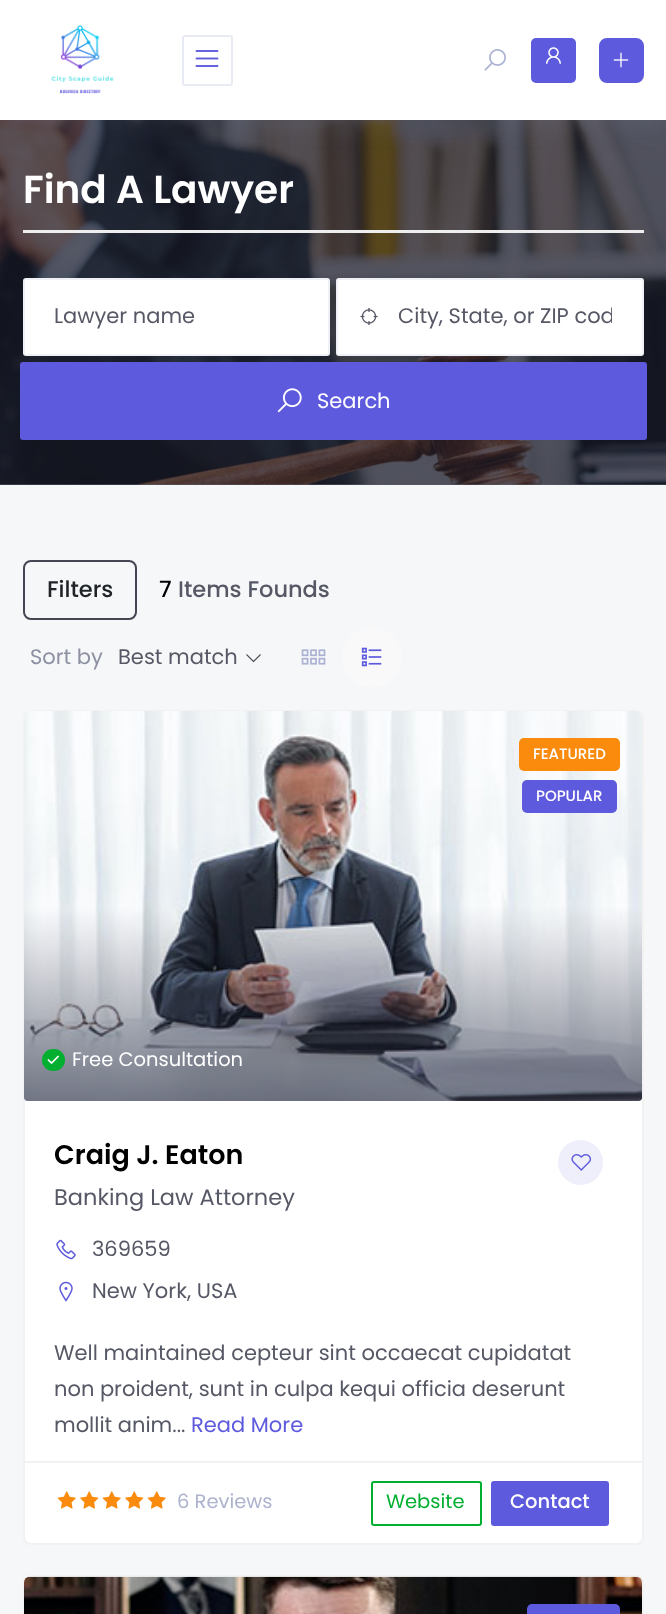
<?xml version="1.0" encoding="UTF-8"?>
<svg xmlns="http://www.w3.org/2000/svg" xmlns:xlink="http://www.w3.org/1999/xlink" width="666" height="1614">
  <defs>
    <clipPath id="clip1"><rect x="24" y="711" width="618" height="390" rx="3" /></clipPath>
    <linearGradient id="g1" gradientUnits="userSpaceOnUse" x1="333" y1="1101" x2="333" y2="711"><stop offset="0" stop-color="#272b41" stop-opacity="0.6" /><stop offset="0.5" stop-color="#272b41" stop-opacity="0" /></linearGradient>
    <clipPath id="clip2"><rect x="398" y="300" width="214" height="32" /></clipPath>
  </defs>
  <rect width="100%" height="100%" fill="#f6f7f8" />
  <rect y="484" width="666" height="1" fill="#595c66" />
  <image x="0" y="120" width="666" height="365" xlink:href="image6.png" />
  <rect y="8" width="666" height="120" fill="#9299b8" fill-opacity="0.1" filter="blur(11px)" />
  <rect width="666" height="120" fill="#ffffff" />
  <image x="51" y="25" width="63" height="69" xlink:href="image1.png" />
  <rect x="183" y="36" width="49" height="49" rx="2" fill="none" stroke="#e9ebf4" stroke-width="2" />
  <image x="195" y="50" width="24" height="17" xlink:href="image2.png" />
  <image x="484" y="49" width="22" height="22" xlink:href="image3.png" />
  <rect x="531" y="38" width="45" height="45" rx="5" fill="#5e5add" />
  <image x="546" y="47" width="15" height="17" xlink:href="image4.png" />
  <rect x="600" y="39" width="43" height="43" rx="7" fill="#5e5add" stroke="#5e5add" stroke-width="2" />
  <image x="613" y="52" width="16" height="16" xlink:href="image5.png" />
  <rect x="23" y="230" width="621" height="3" fill="#eeeeee" />
  <rect x="24" y="279" width="305" height="76" rx="2" fill="#ffffff" stroke="#eff1f6" stroke-width="2" />
  <rect x="337" y="279" width="306" height="76" rx="2" fill="#ffffff" stroke="#eff1f6" stroke-width="2" />
  <image x="360" y="308" width="18" height="17" xlink:href="image7.png" />
  <rect x="20" y="362" width="627" height="78" rx="3" fill="#5e5add" />
  <image x="277" y="388" width="25" height="25" xlink:href="image8.png" />
  <rect x="24" y="561" width="112" height="58" rx="7" fill="none" stroke="#444752" stroke-width="2" />
  <image x="246" y="654" width="15" height="9" xlink:href="image9.png" />
  <image x="301" y="649" width="25" height="16" xlink:href="image10.png" />
  <circle cx="372" cy="657" r="30" fill="#f9f9fa" />
  <image x="361" y="647" width="21" height="20" xlink:href="image11.png" />
  <rect x="24" y="711" width="619" height="833" rx="7" fill="#ffffff" stroke="#f2f2f2" stroke-width="2" />
  <path d="M 30 711 h 606 c 3.5 0 6 2.5 6 6 v 381 c 0 1.5 -1.5 3 -3 3 h -612 c -1.5 0 -3 -1.5 -3 -3 v -381 c 0 -3.5 2.5 -6 6 -6 z" fill="#f6f7f8" />
  <image x="24" y="711" width="618" height="390" xlink:href="image12.png" />
  <g clip-path="url(#clip1)">
    <path d="M 30 711 h 606 c 3.5 0 6 2.5 6 6 v 381 c 0 1.5 -1.5 3 -3 3 h -612 c -1.5 0 -3 -1.5 -3 -3 v -381 c 0 -3.5 2.5 -6 6 -6 z" fill="url(#g1)" />
  </g>
  <rect x="519" y="738" width="101" height="33" rx="5" fill="#fa8b0c" />
  <rect x="522" y="780" width="95" height="33" rx="5" fill="#5e5add" />
  <rect x="42" y="1049" width="23" height="22" rx="11" fill="#00af2f" />
  <image x="47" y="1055" width="12" height="9" xlink:href="image13.png" />
  <circle cx="580.5" cy="1162.5" r="22.5" fill="#efeffc" />
  <image x="571" y="1154" width="21" height="17" xlink:href="image14.png" />
  <image x="56" y="1239" width="20" height="21" xlink:href="image15.png" />
  <image x="59" y="1281" width="14" height="21" xlink:href="image16.png" />
  <rect x="24" y="1461" width="618" height="2" fill="#f2f2f2" />
  <image x="57" y="1491" width="19" height="18" xlink:href="image17.png" />
  <image x="80" y="1491" width="19" height="18" xlink:href="image18.png" />
  <image x="102" y="1491" width="19" height="18" xlink:href="image17.png" />
  <image x="125" y="1491" width="19" height="18" xlink:href="image18.png" />
  <image x="147" y="1491" width="19" height="18" xlink:href="image17.png" />
  <rect x="372" y="1482" width="109" height="43" rx="2" fill="none" stroke="#00af2f" stroke-width="2" />
  <rect x="492" y="1482" width="116" height="43" rx="2" fill="#5e5add" stroke="#5e5add" stroke-width="2" />
  <rect x="24" y="1576" width="619" height="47" rx="7" fill="none" stroke="#f2f2f2" stroke-width="2" />
  <image x="24" y="1576" width="618" height="38" xlink:href="image19.png" />
  <rect x="527" y="1604" width="93" height="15" rx="5" fill="#5e5add" />
  <text x="23" y="203" style="font-family: Poppins; font-size: 39px; font-weight: 600; fill: #ffffff">Find A Lawyer</text>
  <text x="54" y="323" style="font-family: Poppins; font-size: 21px; fill: #565865">Lawyer name</text>
  <g clip-path="url(#clip2)">
    <text x="398" y="323" style="font-family: Poppins; font-size: 21px; fill: #565865">City, State, or ZIP cod</text>
  </g>
  <text x="317" y="408" style="font-family: Poppins; font-size: 21px; fill: #ffffff">Search</text>
  <text x="47" y="597" style="font-family: Poppins; font-size: 22.5px; font-weight: 500; fill: #202428">Filters</text>
  <text x="159" y="597" style="font-family: Poppins; font-size: 22.5px; font-weight: 500; fill: #000000">7</text>
  <text x="178" y="597" style="font-family: Poppins; font-size: 22.5px; font-weight: 500; fill: #565865">Items Founds</text>
  <text x="30" y="664" style="font-family: Poppins; font-size: 21px; fill: #8d91a2">Sort by</text>
  <text x="118" y="664" style="font-family: Poppins; font-size: 21px; fill: #565865">Best match</text>
  <text x="533" y="759" style="font-family: Poppins; font-size: 15px; font-weight: 500; fill: #ffffff">FEATURED</text>
  <text x="536" y="801" style="font-family: Poppins; font-size: 15px; font-weight: 500; fill: #ffffff">POPULAR</text>
  <text x="72" y="1066" style="font-family: Poppins; font-size: 19.5px; fill: #ffffff">Free Consultation</text>
  <text x="54" y="1164" style="font-family: Poppins; font-size: 27px; font-weight: 600; fill: #000000">Craig J. Eaton</text>
  <text x="54" y="1205" style="font-family: Poppins; font-size: 22.5px; fill: #565865">Banking Law Attorney</text>
  <text x="92" y="1256" style="font-family: Poppins; font-size: 21px; fill: #565865">369659</text>
  <text x="92" y="1298" style="font-family: Poppins; font-size: 21px; fill: #565865">New York, USA</text>
  <text x="54" y="1360" style="font-family: Poppins; font-size: 21px; fill: #565865">Well maintained cepteur sint occaecat cupidatat</text>
  <text x="54" y="1396" style="font-family: Poppins; font-size: 21px; fill: #565865">non proident, sunt in culpa kequi officia deserunt</text>
  <text x="54" y="1432" style="font-family: Poppins; font-size: 21px; fill: #565865">mollit anim...</text>
  <text x="191" y="1432" style="font-family: Poppins; font-size: 21px; fill: #5e5add">Read More</text>
  <text x="177" y="1508" style="font-family: Poppins; font-size: 19.5px; fill: #adb3ce">6 Reviews</text>
  <text x="386" y="1508" style="font-family: Poppins; font-size: 19.5px; fill: #00af2f">Website</text>
  <text x="510" y="1508" style="font-family: Poppins; font-size: 19.5px; font-weight: 500; fill: #ffffff">Contact</text>
</svg>
